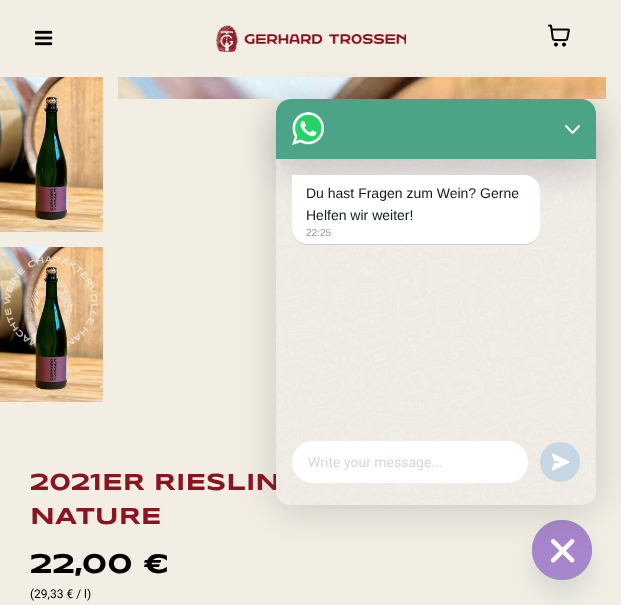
<?xml version="1.0" encoding="UTF-8"?>
<svg xmlns="http://www.w3.org/2000/svg" xmlns:xlink="http://www.w3.org/1999/xlink" width="621" height="605">
  <rect width="100%" height="100%" fill="#f2eee4" />
  <image x="216" y="25" width="190" height="27" xlink:href="image5.png" />
  <image x="548" y="24" width="22" height="23" xlink:href="image6.png" />
  <image x="118" y="77" width="488" height="22" xlink:href="image9.png" />
  <image x="532" y="520" width="60" height="60" xlink:href="image11.png" />
  <rect x="532" y="536" width="60" height="60" rx="30" fill="#49687e" fill-opacity="0.16" filter="blur(12px)" />
  <image x="532" y="520" width="60" height="60" xlink:href="image10.png" />
  <rect x="276" y="104" width="320" height="406" rx="15" fill="#000000" fill-opacity="0.16" filter="blur(20px)" />
  <image x="35" y="30" width="18" height="16" xlink:href="image4.png" />
  <image x="0" y="77" width="103" height="155" xlink:href="image7.png" />
  <image x="0" y="247" width="103" height="155" xlink:href="image8.png" />
  <text x="30" y="490" style="font-family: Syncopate; font-size: 24px; font-weight: bold; fill: #8a141f">2021ER RIESLIN</text>
  <rect x="276" y="99" width="320" height="406" rx="15" fill="#ffffff" />
  <image x="276" y="99" width="320" height="406" xlink:href="image2.png" />
  <rect x="292" y="176" width="248" height="69" rx="16" fill="#000000" fill-opacity="0.13" filter="blur(0.5px)" />
  <rect x="276" y="115" width="320" height="60" rx="15" fill="#1a0e35" fill-opacity="0.16" filter="blur(16px)" />
  <path d="M 292 175 h 232 c 9 0 16 7 16 16 v 37 c 0 9 -7 16 -16 16 h -216 c -9 0 -16 -7 -16 -16 z" fill="#ffffff" />
  <text x="306" y="236" style="font-family: Liberation Sans; font-size: 10px; fill: #93939d">22:25</text>
  <text x="306" y="220" style="font-family: Liberation Sans; font-size: 14px; fill: #111b21">Helfen wir weiter!</text>
  <text x="306" y="198" style="font-family: Liberation Sans; font-size: 14px; fill: #111b21">Du hast Fragen zum Wein? Gerne</text>
  <circle cx="560" cy="462" r="20" fill="#c6d7e3" />
  <image x="551" y="453" width="19" height="18" xlink:href="image3.png" />
  <rect x="292" y="441" width="236" height="42" rx="21" fill="#ffffff" />
  <text x="308" y="467" style="font-family: Roboto; font-size: 14px; fill: #cedae3">Write your message...</text>
  <path d="M 291 99 h 290 c 8.5 0 15 6.5 15 15 v 45 h -320 v -45 c 0 -8.5 6.5 -15 15 -15 z" fill="#4aa485" />
  <path d="M 566 126 l 6.5 7 l 6.5 -7" fill="none" stroke="#ffffff" stroke-width="2" stroke-linecap="round" stroke-linejoin="round" />
  <image x="292" y="112" width="32" height="33" xlink:href="image1.png" />
  <text x="30" y="524" style="font-family: Syncopate; font-size: 24px; font-weight: bold; fill: #8a141f">NATURE</text>
  <text x="30" y="573" style="font-family: Syncopate; font-size: 28px; font-weight: bold; fill: #020000">22,00 €</text>
  <text x="30" y="598" style="font-family: Roboto; font-size: 12px; fill: #020000">(29,33 € / l)</text>
</svg>
